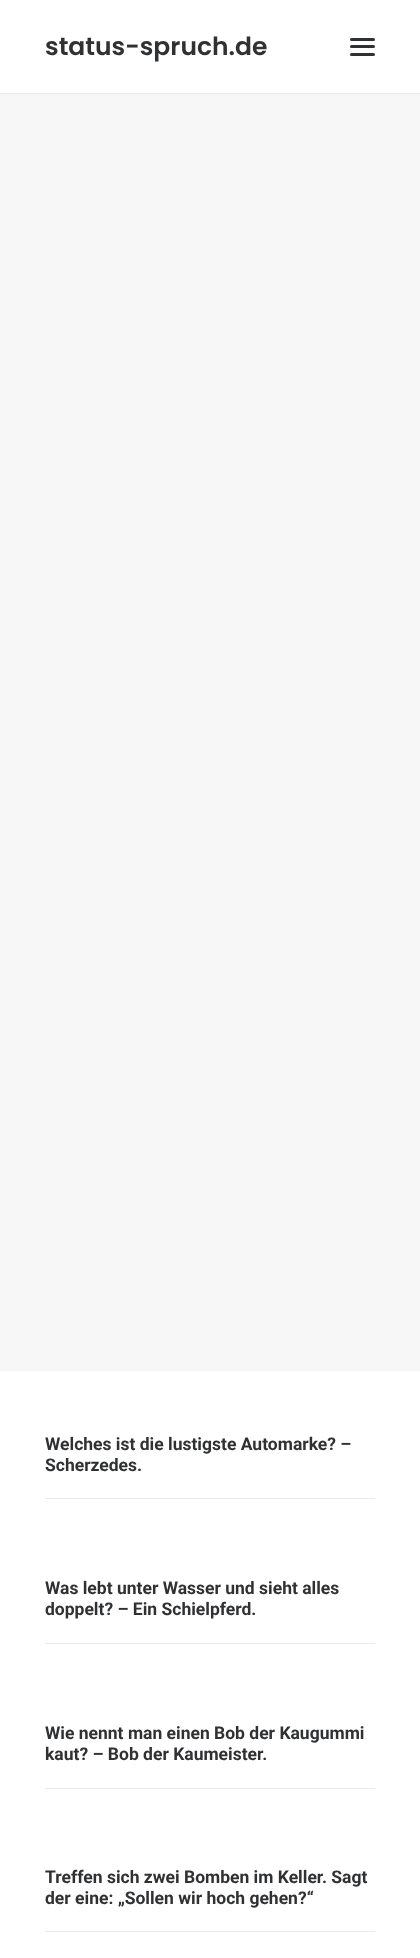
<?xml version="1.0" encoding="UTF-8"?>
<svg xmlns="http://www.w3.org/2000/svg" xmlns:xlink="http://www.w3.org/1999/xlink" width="420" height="1958">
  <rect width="100%" height="100%" fill="#f7f7f7" />
  <rect width="420" height="93" fill="#ffffff" />
  <rect y="93" width="420" height="1" fill="#eaeaea" />
  <rect x="350" y="45" width="25" height="3" rx="1.5" fill="#303133" />
  <rect x="350" y="38" width="25" height="3" rx="1.5" fill="#303133" />
  <rect x="350" y="53" width="25" height="3" rx="1.5" fill="#303133" />
  <rect y="1371" width="420" height="587" fill="#ffffff" />
  <rect x="45" y="1498" width="330" height="1" fill="#eaeaea" />
  <rect x="45" y="1643" width="330" height="1" fill="#eaeaea" />
  <rect x="45" y="1788" width="330" height="1" fill="#eaeaea" />
  <rect x="45" y="1931" width="330" height="1" fill="#eaeaea" />
  <text x="45" y="55" style="font-family: Poppins; font-size: 25px; font-weight: 600; fill: #303133">status-spruch.de</text>
  <text x="45" y="1450" style="font-family: Roboto; font-size: 17.5px; font-weight: bold; fill: #303133">Welches ist die lustigste Automarke? –</text>
  <text x="45" y="1471" style="font-family: Roboto; font-size: 17.5px; font-weight: bold; fill: #303133">Scherzedes.</text>
  <text x="45" y="1594" style="font-family: Roboto; font-size: 17.5px; font-weight: bold; fill: #303133">Was lebt unter Wasser und sieht alles</text>
  <text x="45" y="1615" style="font-family: Roboto; font-size: 17.5px; font-weight: bold; fill: #303133">doppelt? – Ein Schielpferd.</text>
  <text x="45" y="1739" style="font-family: Roboto; font-size: 17.5px; font-weight: bold; fill: #303133">Wie nennt man einen Bob der Kaugummi</text>
  <text x="45" y="1760" style="font-family: Roboto; font-size: 17.5px; font-weight: bold; fill: #303133">kaut? – Bob der Kaumeister.</text>
  <text x="45" y="1883" style="font-family: Roboto; font-size: 17.5px; font-weight: bold; fill: #303133">Treffen sich zwei Bomben im Keller. Sagt</text>
  <text x="45" y="1904" style="font-family: Roboto; font-size: 17.5px; font-weight: bold; fill: #303133">der eine: „Sollen wir hoch gehen?“</text>
</svg>
